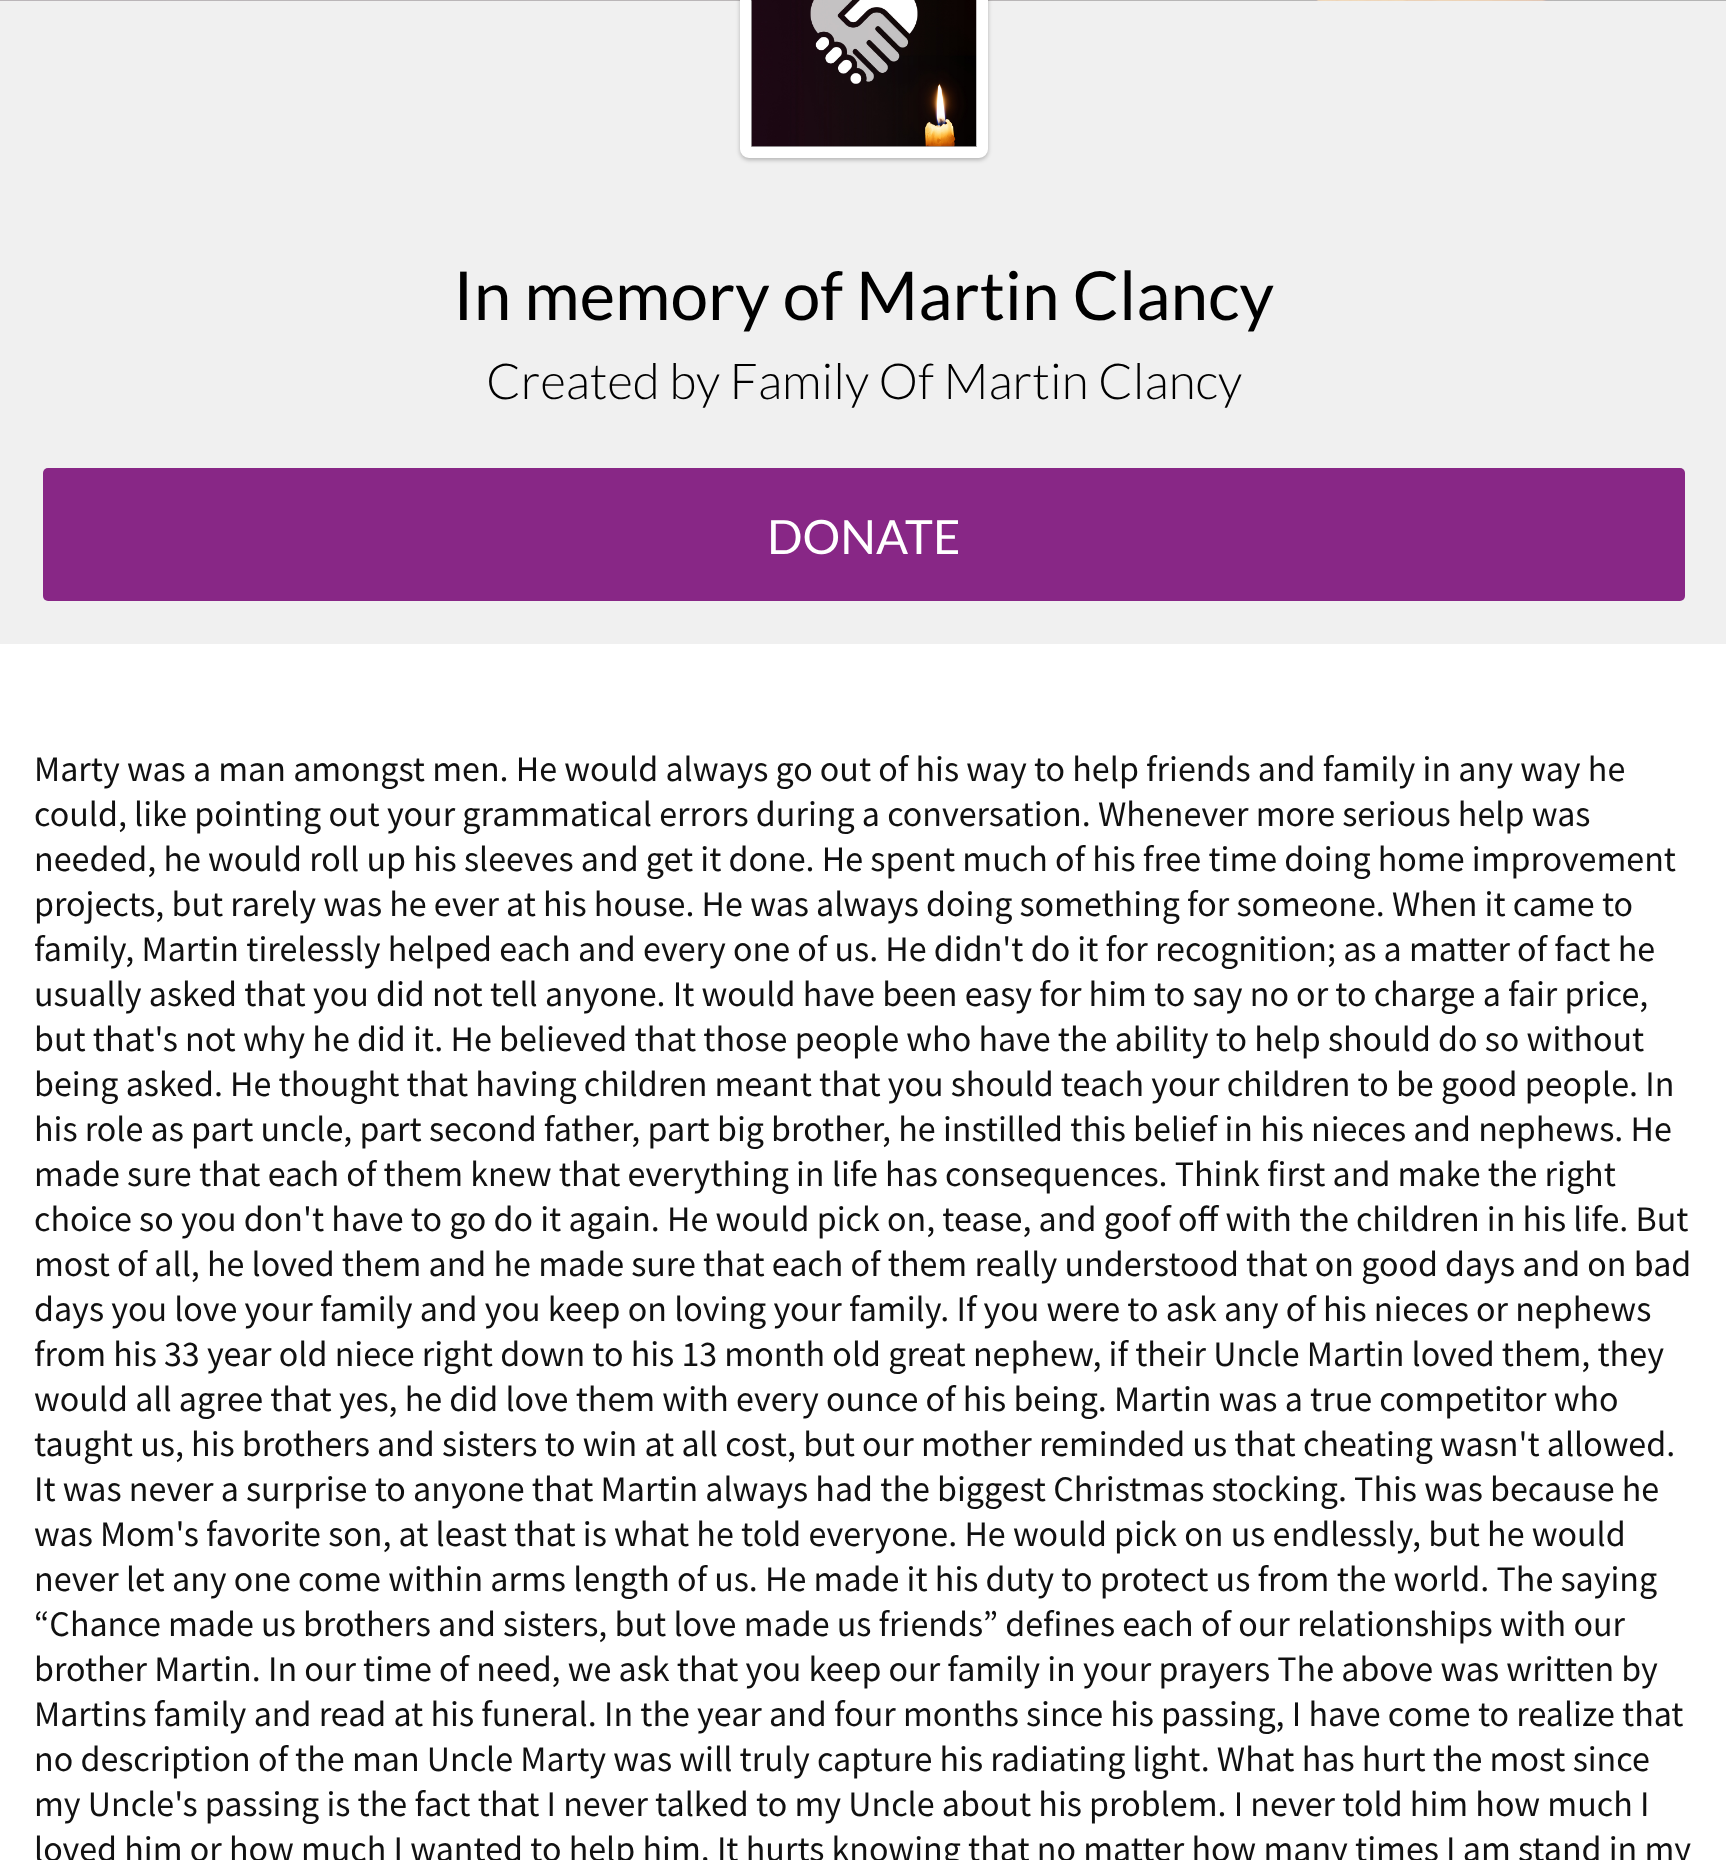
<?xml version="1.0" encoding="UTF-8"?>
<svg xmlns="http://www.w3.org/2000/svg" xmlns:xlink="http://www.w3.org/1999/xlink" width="1726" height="1860">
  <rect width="100%" height="100%" fill="#ffffff" />
  <rect width="1726" height="644" fill="#f0f0f0" />
  <image x="0" y="0" width="1726" height="1" xlink:href="image1.png" />
  <rect x="740" y="-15" width="248" height="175" rx="9" fill="#000000" fill-opacity="0.25" filter="blur(2px)" />
  <rect x="745.5" y="-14.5" width="237" height="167" rx="3.5" fill="none" stroke="#ffffff" stroke-width="11" />
  <rect x="976" width="1" height="146" fill="#ffffff" />
  <image x="751" y="0" width="226" height="147" xlink:href="image2.png" />
  <rect x="43" y="468" width="1642" height="133" rx="5" fill="#882786" />
  <text x="453" y="320" style="font-family: Lato; font-size: 67.5px; fill: #000000">In memory of Martin Clancy</text>
  <text x="486" y="399" style="font-family: Lato; font-size: 49.5px; font-weight: 300; fill: #000000">Created by Family Of Martin Clancy</text>
  <text x="767" y="554" style="font-family: Lato; font-size: 47.25px; fill: #ffffff">DONATE</text>
  <text x="34" y="781" style="font-family: Source Sans Pro; font-size: 36px; fill: #111111">Marty was a man amongst men. He would always go out of his way to help friends and family in any way he</text>
  <text x="34" y="826" style="font-family: Source Sans Pro; font-size: 36px; fill: #111111">could, like pointing out your grammatical errors during a conversation. Whenever more serious help was</text>
  <text x="34" y="871" style="font-family: Source Sans Pro; font-size: 36px; fill: #111111">needed, he would roll up his sleeves and get it done. He spent much of his free time doing home improvement</text>
  <text x="34" y="916" style="font-family: Source Sans Pro; font-size: 36px; fill: #111111">projects, but rarely was he ever at his house. He was always doing something for someone. When it came to</text>
  <text x="34" y="961" style="font-family: Source Sans Pro; font-size: 36px; fill: #111111">family, Martin tirelessly helped each and every one of us. He didn't do it for recognition; as a matter of fact he</text>
  <text x="34" y="1006" style="font-family: Source Sans Pro; font-size: 36px; fill: #111111">usually asked that you did not tell anyone. It would have been easy for him to say no or to charge a fair price,</text>
  <text x="34" y="1051" style="font-family: Source Sans Pro; font-size: 36px; fill: #111111">but that's not why he did it. He believed that those people who have the ability to help should do so without</text>
  <text x="34" y="1096" style="font-family: Source Sans Pro; font-size: 36px; fill: #111111">being asked. He thought that having children meant that you should teach your children to be good people. In</text>
  <text x="34" y="1141" style="font-family: Source Sans Pro; font-size: 36px; fill: #111111">his role as part uncle, part second father, part big brother, he instilled this belief in his nieces and nephews. He</text>
  <text x="34" y="1186" style="font-family: Source Sans Pro; font-size: 36px; fill: #111111">made sure that each of them knew that everything in life has consequences. Think first and make the right</text>
  <text x="34" y="1231" style="font-family: Source Sans Pro; font-size: 36px; fill: #111111">choice so you don't have to go do it again. He would pick on, tease, and goof off with the children in his life. But</text>
  <text x="34" y="1276" style="font-family: Source Sans Pro; font-size: 36px; fill: #111111">most of all, he loved them and he made sure that each of them really understood that on good days and on bad</text>
  <text x="34" y="1321" style="font-family: Source Sans Pro; font-size: 36px; fill: #111111">days you love your family and you keep on loving your family. If you were to ask any of his nieces or nephews</text>
  <text x="34" y="1366" style="font-family: Source Sans Pro; font-size: 36px; fill: #111111">from his 33 year old niece right down to his 13 month old great nephew, if their Uncle Martin loved them, they</text>
  <text x="34" y="1411" style="font-family: Source Sans Pro; font-size: 36px; fill: #111111">would all agree that yes, he did love them with every ounce of his being. Martin was a true competitor who</text>
  <text x="34" y="1456" style="font-family: Source Sans Pro; font-size: 36px; fill: #111111">taught us, his brothers and sisters to win at all cost, but our mother reminded us that cheating wasn't allowed.</text>
  <text x="34" y="1501" style="font-family: Source Sans Pro; font-size: 36px; fill: #111111">It was never a surprise to anyone that Martin always had the biggest Christmas stocking. This was because he</text>
  <text x="34" y="1546" style="font-family: Source Sans Pro; font-size: 36px; fill: #111111">was Mom's favorite son, at least that is what he told everyone. He would pick on us endlessly, but he would</text>
  <text x="34" y="1591" style="font-family: Source Sans Pro; font-size: 36px; fill: #111111">never let any one come within arms length of us. He made it his duty to protect us from the world. The saying</text>
  <text x="34" y="1636" style="font-family: Source Sans Pro; font-size: 36px; fill: #111111">“Chance made us brothers and sisters, but love made us friends” defines each of our relationships with our</text>
  <text x="34" y="1681" style="font-family: Source Sans Pro; font-size: 36px; fill: #111111">brother Martin. In our time of need, we ask that you keep our family in your prayers The above was written by</text>
  <text x="34" y="1726" style="font-family: Source Sans Pro; font-size: 36px; fill: #111111">Martins family and read at his funeral. In the year and four months since his passing, I have come to realize that</text>
  <text x="34" y="1771" style="font-family: Source Sans Pro; font-size: 36px; fill: #111111">no description of the man Uncle Marty was will truly capture his radiating light. What has hurt the most since</text>
  <text x="34" y="1816" style="font-family: Source Sans Pro; font-size: 36px; fill: #111111">my Uncle's passing is the fact that I never talked to my Uncle about his problem. I never told him how much I</text>
  <text x="34" y="1861" style="font-family: Source Sans Pro; font-size: 36px; fill: #111111">loved him or how much I wanted to help him. It hurts knowing that no matter how many times I am stand in my</text>
</svg>
